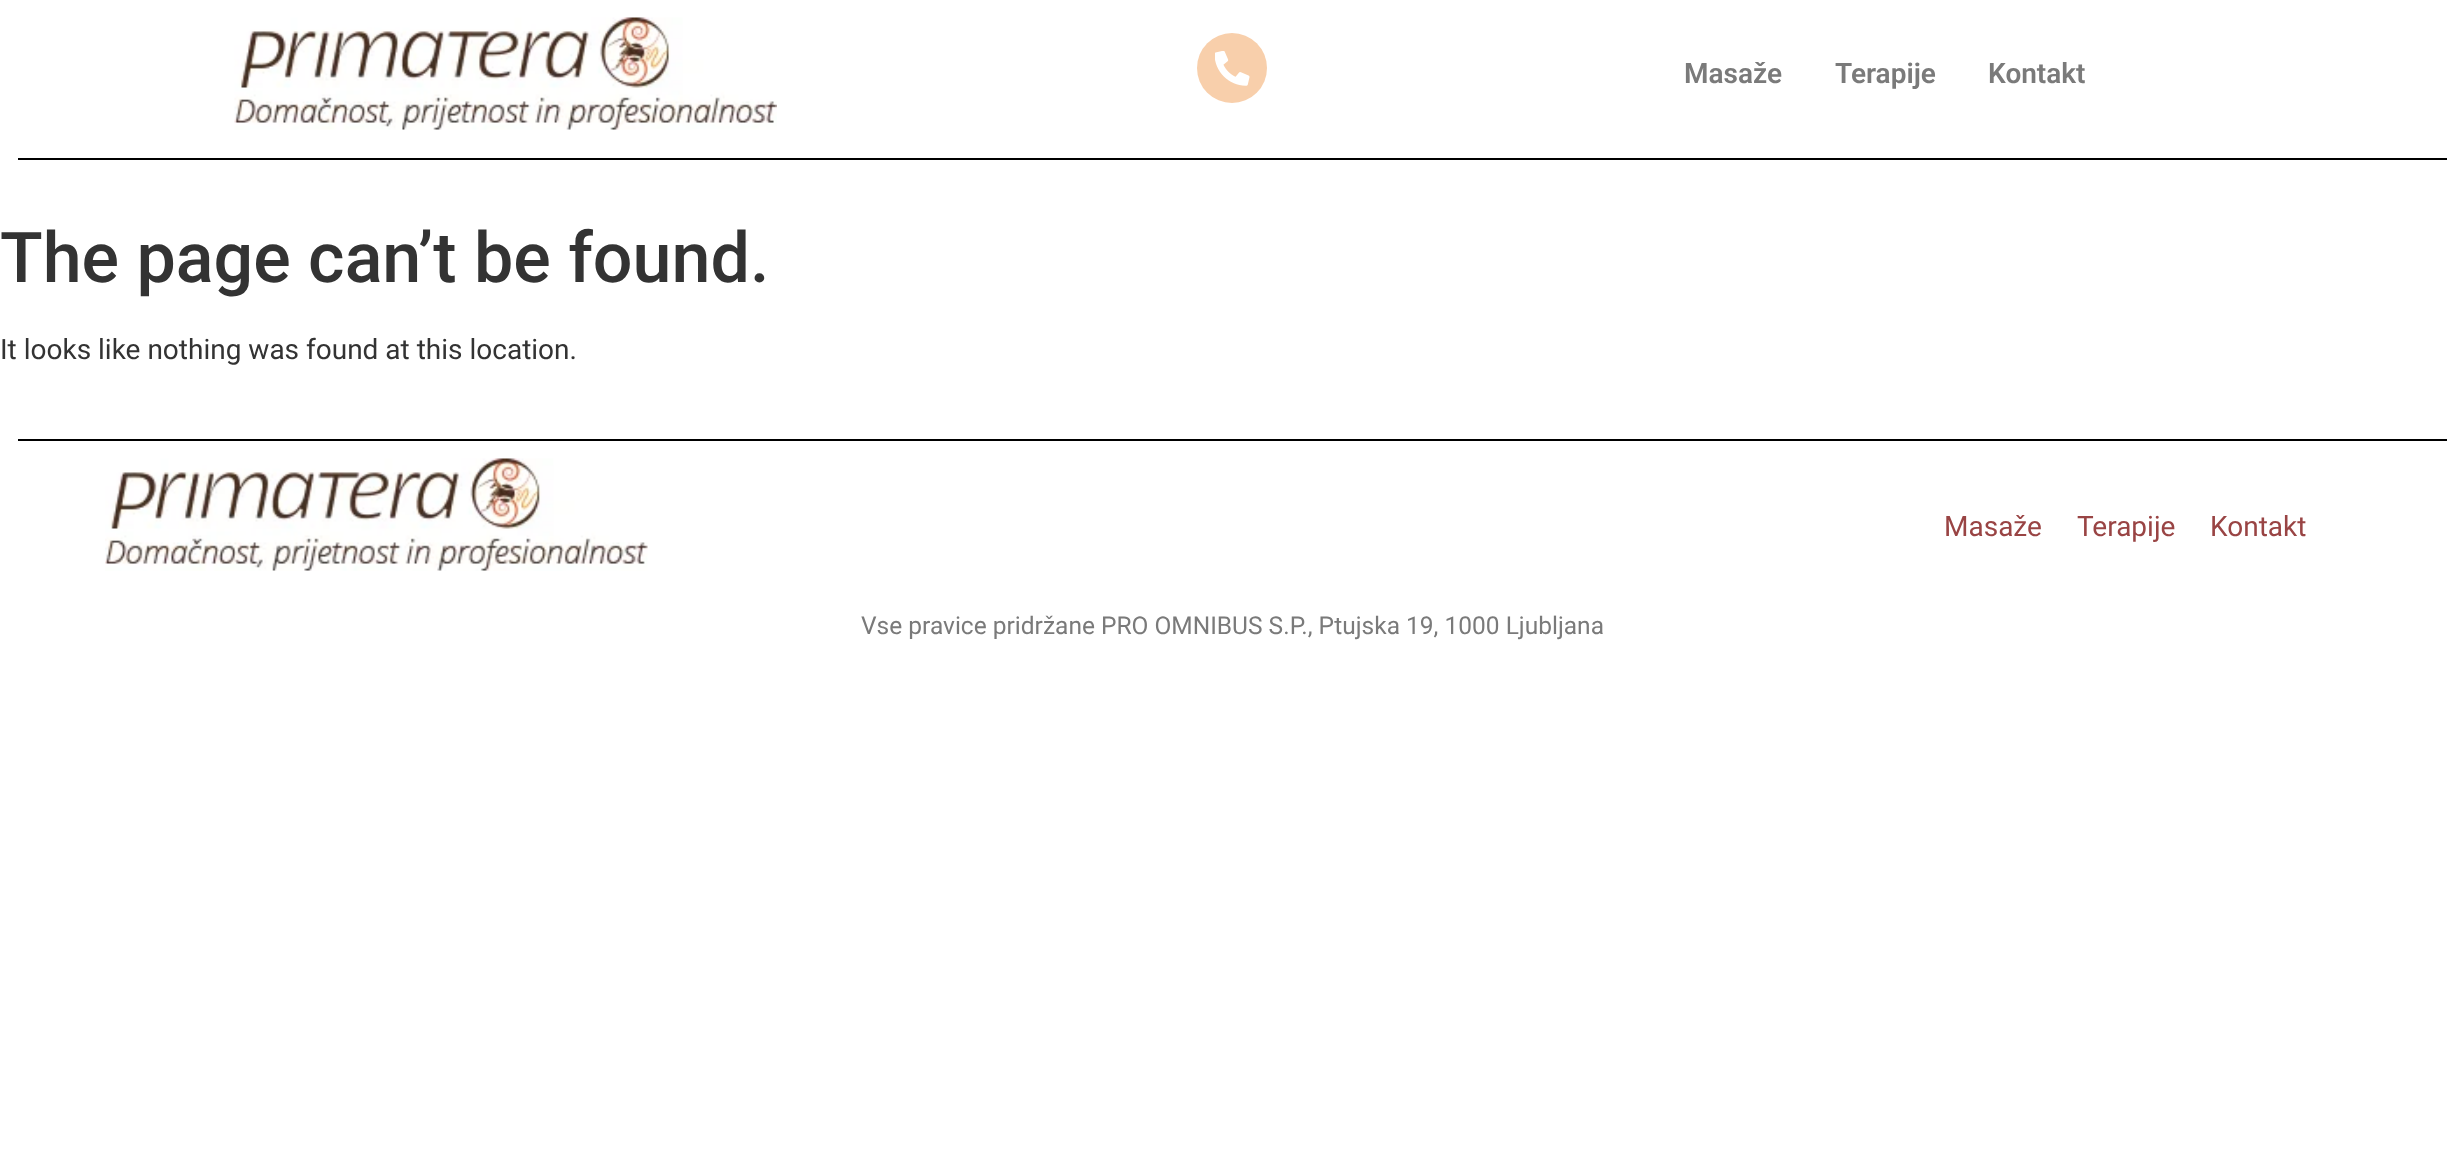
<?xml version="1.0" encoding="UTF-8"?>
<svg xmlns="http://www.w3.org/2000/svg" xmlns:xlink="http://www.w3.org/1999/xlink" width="2463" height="1172">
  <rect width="100%" height="100%" fill="#ffffff" />
  <image x="234" y="17" width="543" height="113" xlink:href="image1.png" />
  <circle cx="1232" cy="68" r="35" fill="#f8cfab" />
  <image x="1215" y="51" width="35" height="35" xlink:href="image2.png" />
  <rect x="18" y="158" width="2429" height="2" fill="#000000" />
  <rect x="18" y="439" width="2429" height="2" fill="#000000" />
  <image x="105" y="458" width="543" height="113" xlink:href="image3.png" />
  <text x="1684" y="83" style="font-family: Roboto; font-size: 28px; font-weight: 600; fill: #7a7a7a">Masaže</text>
  <text x="1835" y="83" style="font-family: Roboto; font-size: 28px; font-weight: 600; fill: #7a7a7a">Terapije</text>
  <text x="1988" y="83" style="font-family: Roboto; font-size: 28px; font-weight: 600; fill: #7a7a7a">Kontakt</text>
  <text x="0" y="282" style="font-family: Roboto; font-size: 70px; font-weight: 500; fill: #333333">The page can’t be found.</text>
  <text x="0" y="359" style="font-family: Roboto; font-size: 28px; fill: #333333">It looks like nothing was found at this location.</text>
  <text x="1944" y="536" style="font-family: Roboto; font-size: 28px; fill: #994444">Masaže</text>
  <text x="2077" y="536" style="font-family: Roboto; font-size: 28px; fill: #994444">Terapije</text>
  <text x="2210" y="536" style="font-family: Roboto; font-size: 28px; fill: #994444">Kontakt</text>
  <text x="861" y="634" style="font-family: Roboto; font-size: 24.5px; fill: #7a7a7a">Vse pravice pridržane PRO OMNIBUS S.P., Ptujska 19, 1000 Ljubljana</text>
</svg>
